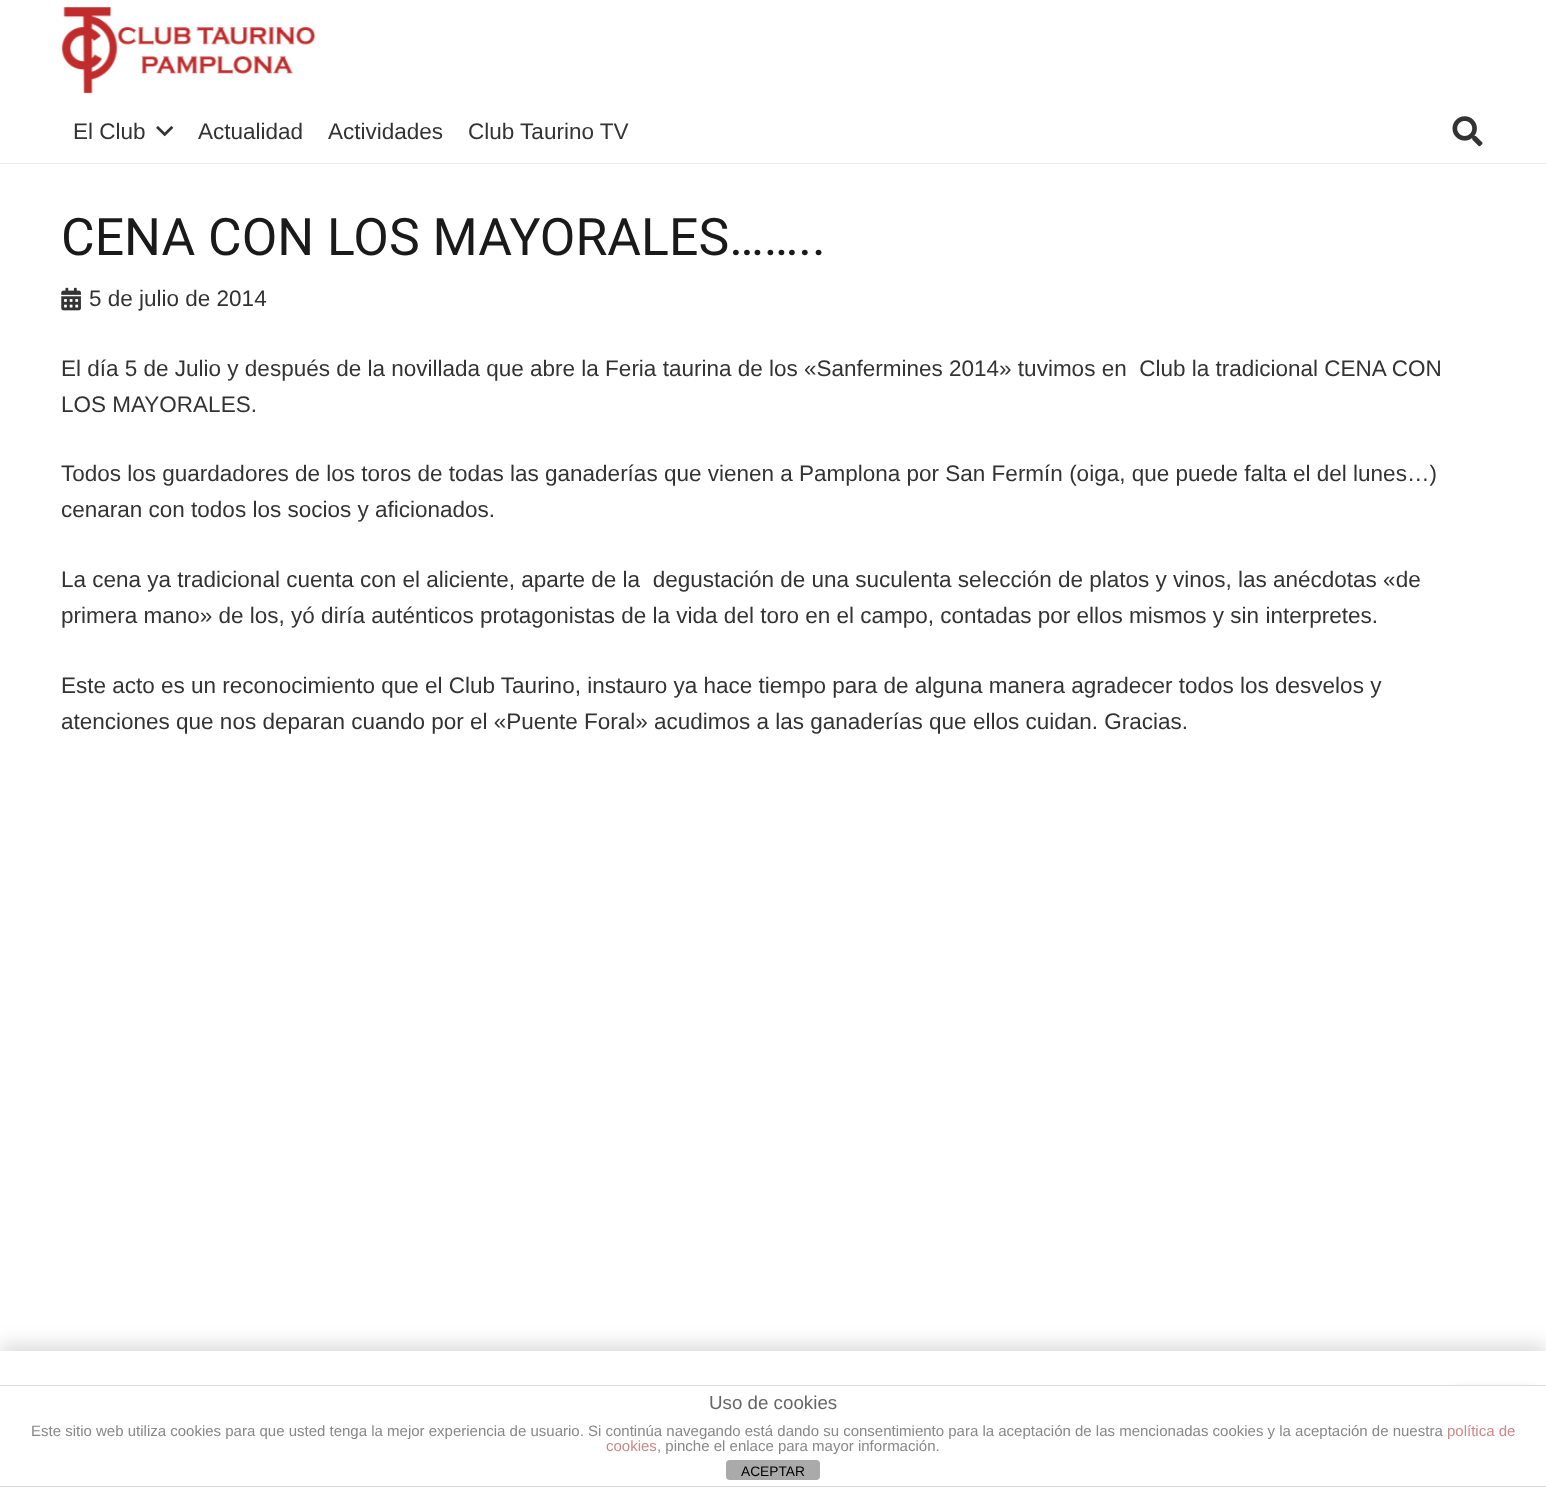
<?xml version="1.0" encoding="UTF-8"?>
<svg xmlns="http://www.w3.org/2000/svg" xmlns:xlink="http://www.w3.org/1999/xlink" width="1546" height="1487">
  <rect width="100%" height="100%" fill="#ffffff" />
  <image x="61" y="7" width="254" height="87" xlink:href="image1.png" />
  <rect y="163" width="1546" height="1" fill="#ebebeb" />
  <image x="156" y="126" width="18" height="11" xlink:href="image2.png" />
  <image x="1452" y="116" width="31" height="31" xlink:href="image3.png" />
  <image x="61" y="287" width="20" height="24" xlink:href="image4.png" />
  <rect y="1345" width="1546" height="136" fill="#000000" fill-opacity="0.15" filter="blur(9.5px)" />
  <rect y="1351" width="1546" height="34" fill="#ffffff" />
  <rect x="1455" y="1398" width="79" height="45" rx="5" fill="#000000" fill-opacity="0.75" filter="blur(8px)" />
  <rect y="1386" width="1546" height="100" fill="#ffffff" />
  <rect y="1385" width="1546" height="1" fill="#dddddd" />
  <rect y="1486" width="1546" height="1" fill="#dddddd" />
  <rect x="726" y="1460" width="94" height="20" rx="4" fill="#aaaaaa" />
  <text x="73" y="139" style="font-family: Liberation Sans; font-size: 22.5px; fill: #333333">El Club</text>
  <text x="198" y="139" style="font-family: Liberation Sans; font-size: 22.5px; fill: #333333">Actualidad</text>
  <text x="328" y="139" style="font-family: Liberation Sans; font-size: 22.5px; fill: #333333">Actividades</text>
  <text x="468" y="139" style="font-family: Liberation Sans; font-size: 22.5px; fill: #333333">Club Taurino TV</text>
  <text x="61" y="255" style="font-family: Roboto; font-size: 51.75px; fill: #1a1a1a">CENA CON LOS MAYORALES……..</text>
  <text x="89" y="306" style="font-family: Liberation Sans; font-size: 22.5px; fill: #333333">5 de julio de 2014</text>
  <text x="61" y="376" style="font-family: Liberation Sans; font-size: 22.5px; fill: #333333" xml:space="preserve">El día 5 de Julio y después de la novillada que abre la Feria taurina de los «Sanfermines 2014» tuvimos en  Club la tradicional CENA CON</text>
  <text x="61" y="412" style="font-family: Liberation Sans; font-size: 22.5px; fill: #333333">LOS MAYORALES.</text>
  <text x="61" y="481" style="font-family: Liberation Sans; font-size: 22.5px; fill: #333333">Todos los guardadores de los toros de todas las ganaderías que vienen a Pamplona por San Fermín (oiga, que puede falta el del lunes…)</text>
  <text x="61" y="517" style="font-family: Liberation Sans; font-size: 22.5px; fill: #333333">cenaran con todos los socios y aficionados.</text>
  <text x="61" y="587" style="font-family: Liberation Sans; font-size: 22.5px; fill: #333333" xml:space="preserve">La cena ya tradicional cuenta con el aliciente, aparte de la  degustación de una suculenta selección de platos y vinos, las anécdotas «de</text>
  <text x="61" y="623" style="font-family: Liberation Sans; font-size: 22.5px; fill: #333333">primera mano» de los, yó diría auténticos protagonistas de la vida del toro en el campo, contadas por ellos mismos y sin interpretes.</text>
  <text x="61" y="693" style="font-family: Liberation Sans; font-size: 22.5px; fill: #333333">Este acto es un reconocimiento que el Club Taurino, instauro ya hace tiempo para de alguna manera agradecer todos los desvelos y</text>
  <text x="61" y="729" style="font-family: Liberation Sans; font-size: 22.5px; fill: #333333">atenciones que nos deparan cuando por el «Puente Foral» acudimos a las ganaderías que ellos cuidan. Gracias.</text>
  <text x="709" y="1409" style="font-family: Liberation Sans; font-size: 18.75px; fill: #666666">Uso de cookies</text>
  <text x="31" y="1436" style="font-family: Liberation Sans; font-size: 15px; fill: #888888">Este sitio web utiliza cookies para que usted tenga la mejor experiencia de usuario. Si continúa navegando está dando su consentimiento para la aceptación de las mencionadas cookies y la aceptación de nuestra</text>
  <text x="1447" y="1436" style="font-family: Liberation Sans; font-size: 15px; fill: #cc8888">política de</text>
  <text x="606" y="1451" style="font-family: Liberation Sans; font-size: 15px; fill: #cc8888">cookies</text>
  <text x="657" y="1451" style="font-family: Liberation Sans; font-size: 15px; fill: #888888">, pinche el enlace para mayor información.</text>
  <text x="741" y="1476" style="font-family: Liberation Sans; font-size: 13.75px; fill: #000000">ACEPTAR</text>
</svg>
